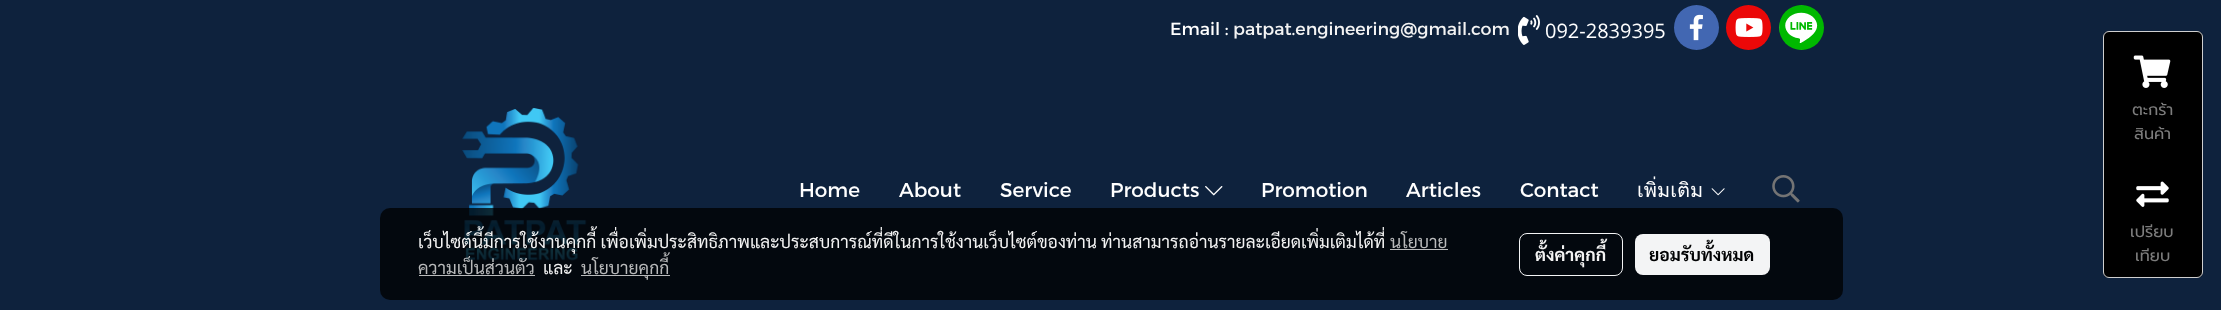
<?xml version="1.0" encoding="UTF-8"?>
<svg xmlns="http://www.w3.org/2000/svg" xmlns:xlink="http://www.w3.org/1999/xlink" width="2221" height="310">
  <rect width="100%" height="100%" fill="#0e223d" />
  <image x="1518" y="15" width="22" height="30" xlink:href="image1.png" />
  <circle cx="1696.5" cy="27.5" r="22.5" fill="#4267b2" />
  <image x="1689" y="14" width="14" height="27" xlink:href="image2.png" />
  <circle cx="1748.5" cy="27.5" r="22.5" fill="#eb0808" />
  <image x="1735" y="18" width="28" height="19" xlink:href="image3.png" />
  <circle cx="1801.5" cy="27.5" r="22.5" fill="#00b800" />
  <image x="1779" y="5" width="39" height="45" xlink:href="image4.png" />
  <image x="462" y="107" width="125" height="154" xlink:href="image5.png" />
  <image x="1205" y="186" width="18" height="10" xlink:href="image6.png" />
  <image x="1711" y="188" width="14" height="8" xlink:href="image7.png" />
  <image x="1772" y="175" width="28" height="28" xlink:href="image8.png" />
  <rect x="2103" y="31" width="100" height="247" rx="6" fill="#000000" />
  <rect x="2103.5" y="31.5" width="99" height="246" rx="5.5" fill="none" stroke="#ffffff" stroke-opacity="0.81" />
  <image x="2133" y="55" width="38" height="33" xlink:href="image9.png" />
  <image x="2136" y="181" width="33" height="26" xlink:href="image10.png" />
  <rect x="380" y="208" width="1463" height="92" rx="10" fill="#000000" fill-opacity="0.76" />
  <rect x="1390" y="249" width="58" height="1" fill="#b9babb" />
  <rect x="419" y="275" width="116" height="1" fill="#b9babb" />
  <rect x="581" y="275" width="89" height="1" fill="#b9babb" />
  <rect x="1519.5" y="233.5" width="103" height="42" rx="7.5" fill="none" stroke="#f3f4f5" />
  <rect x="1635" y="234" width="135" height="41" rx="8" fill="#f3f4f5" />
  <text x="1170" y="35" style="font-family: Montserrat; font-size: 17.5px; fill: #ffffff">Email :</text>
  <text x="1233" y="35" style="font-family: Montserrat; font-size: 17.5px; fill: #f3f3f3">patpat.engineering@gmail.com</text>
  <text x="1545" y="38" style="font-family: Open Sans; font-size: 20px; fill: #ffffff">092-2839395</text>
  <text x="799" y="197" style="font-family: Montserrat; font-size: 20px; fill: #ffffff">Home</text>
  <text x="899" y="197" style="font-family: Montserrat; font-size: 20px; fill: #ffffff">About</text>
  <text x="1000" y="197" style="font-family: Montserrat; font-size: 20px; fill: #ffffff">Service</text>
  <text x="1110" y="197" style="font-family: Montserrat; font-size: 20px; fill: #ffffff">Products</text>
  <text x="1261" y="197" style="font-family: Montserrat; font-size: 20px; fill: #ffffff">Promotion</text>
  <text x="1406" y="197" style="font-family: Montserrat; font-size: 20px; fill: #ffffff">Articles</text>
  <text x="1520" y="197" style="font-family: Montserrat; font-size: 20px; fill: #ffffff">Contact</text>
  <text x="1637" y="197" style="font-family: Loma; font-size: 20px; fill: #ffffff">เพิ่มเติม</text>
  <text x="2132" y="115" style="font-family: Prompt; font-size: 16px; fill: #7d7d7d">ตะกร้า</text>
  <text x="2134" y="139" style="font-family: Prompt; font-size: 16px; fill: #7d7d7d">สินค้า</text>
  <text x="2130" y="237" style="font-family: Prompt; font-size: 16px; fill: #7d7d7d">เปรียบ</text>
  <text x="2135" y="261" style="font-family: Prompt; font-size: 16px; fill: #7d7d7d">เทียบ</text>
  <text x="418" y="248" style="font-family: Sarabun; font-size: 17.5px; fill: #f3f3f3">เว็บไซต์นี้มีการใช้งานคุกกี้ เพื่อเพิ่มประสิทธิภาพและประสบการณ์ที่ดีในการใช้งานเว็บไซต์ของท่าน</text>
  <text x="1101" y="248" style="font-family: Sarabun; font-size: 17.5px; fill: #f3f3f3">ท่านสามารถอ่านรายละเอียดเพิ่มเติมได้ที่</text>
  <text x="1390" y="248" style="font-family: Sarabun; font-size: 17.5px; fill: #b9babb">นโยบาย</text>
  <text x="418" y="274" style="font-family: Sarabun; font-size: 17.5px; fill: #b9babb">ความเป็นส่วนตัว</text>
  <text x="543" y="274" style="font-family: Sarabun; font-size: 17.5px; fill: #f3f3f3">และ</text>
  <text x="581" y="274" style="font-family: Sarabun; font-size: 17.5px; fill: #b9babb">นโยบายคุกกี้</text>
  <text x="1535" y="261" style="font-family: Sarabun; font-size: 17.5px; font-weight: bold; fill: #f3f3f3">ตั้งค่าคุกกี้</text>
  <text x="1649" y="261" style="font-family: Sarabun; font-size: 17.5px; font-weight: bold; fill: #010203">ยอมรับทั้งหมด</text>
</svg>
